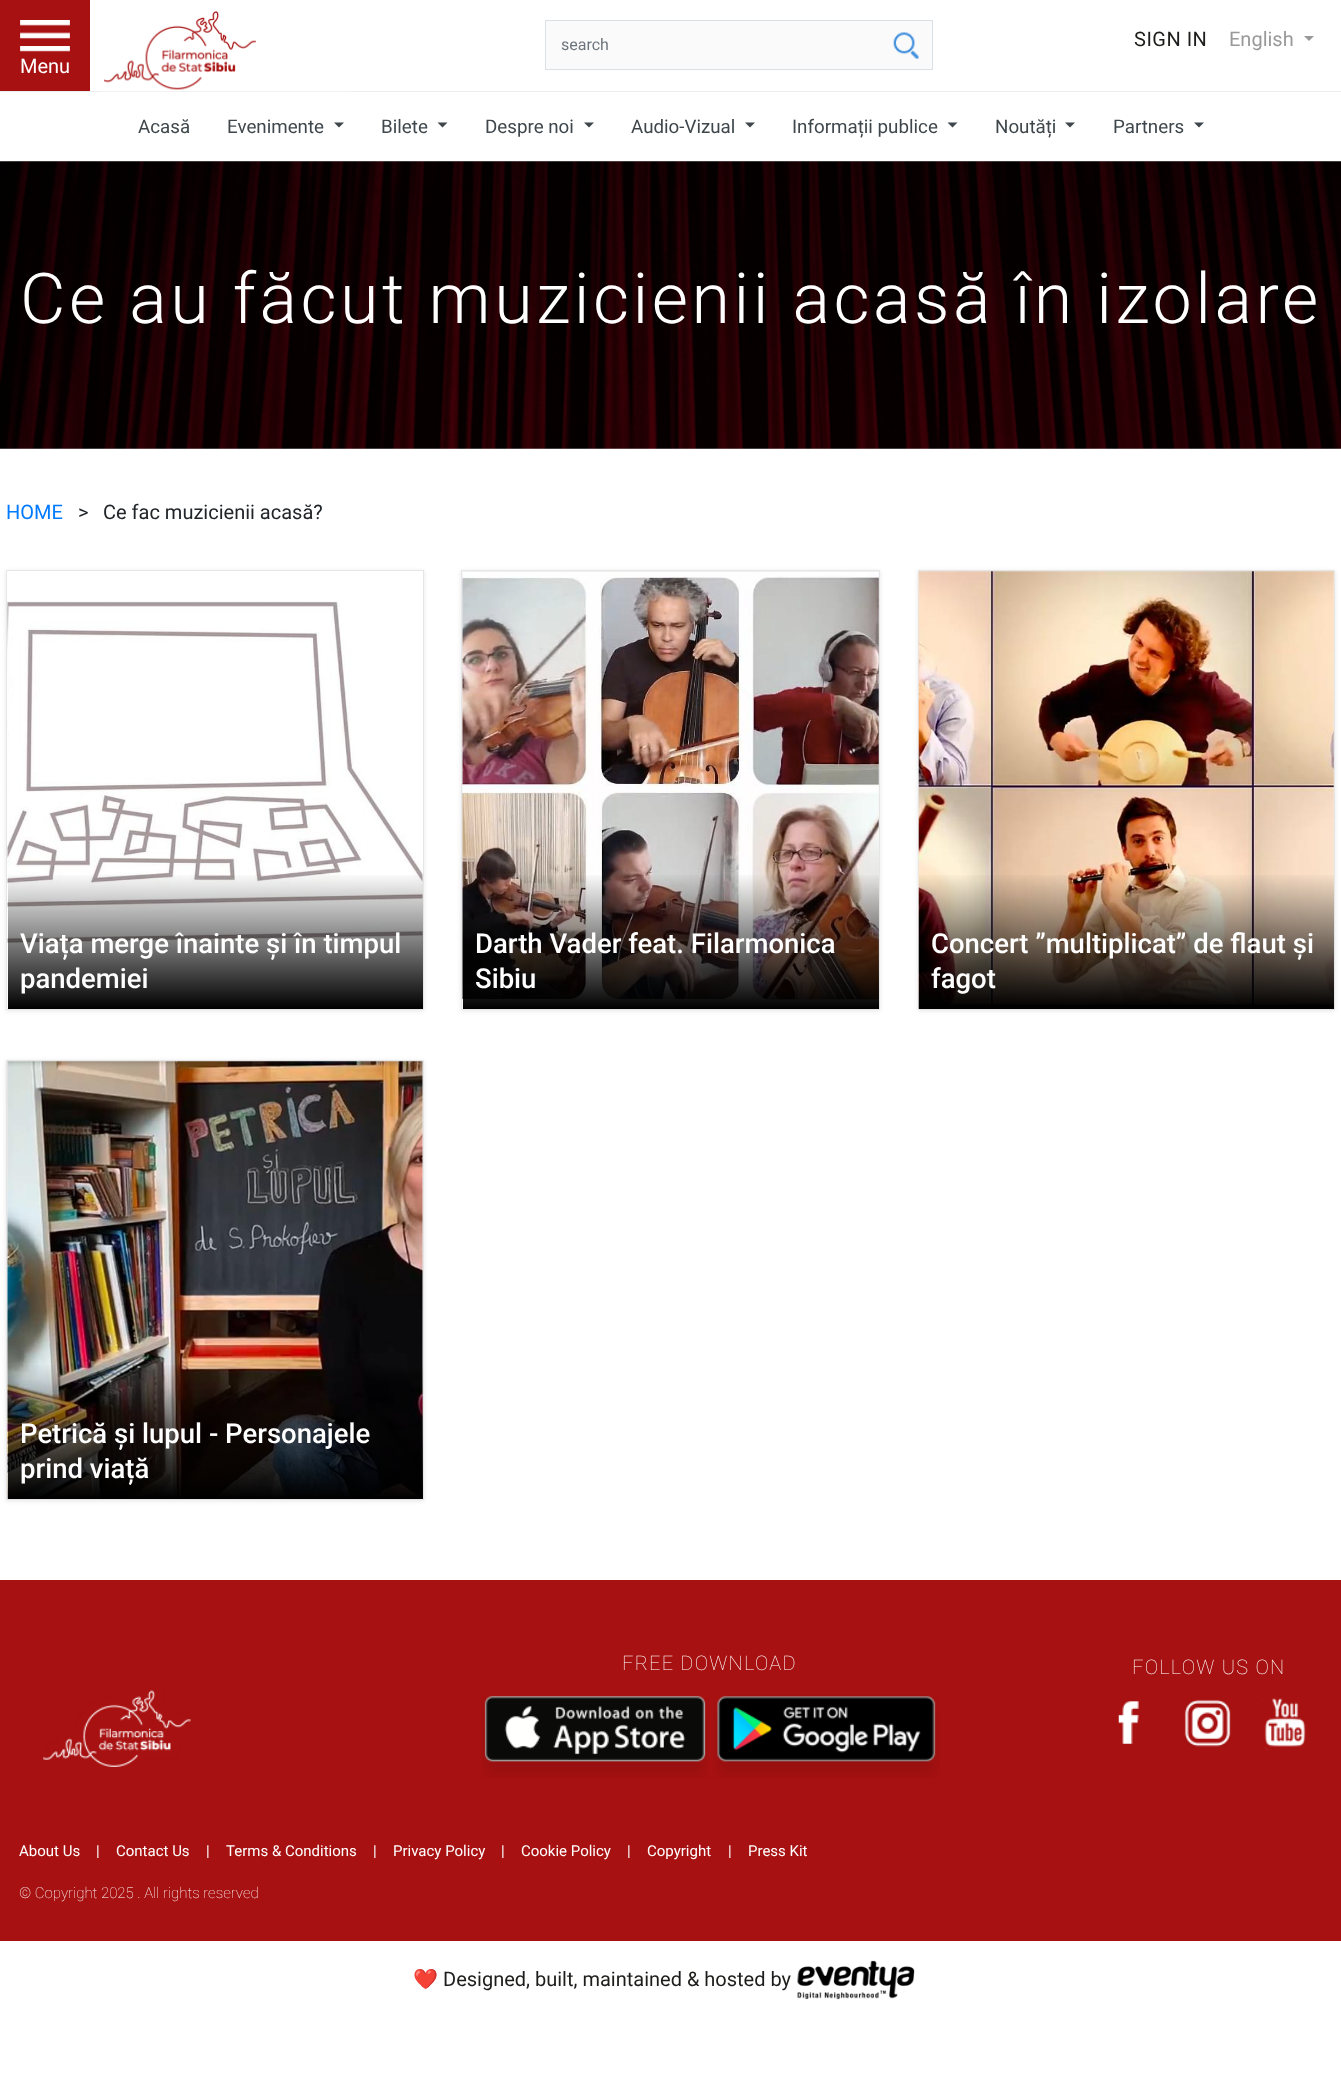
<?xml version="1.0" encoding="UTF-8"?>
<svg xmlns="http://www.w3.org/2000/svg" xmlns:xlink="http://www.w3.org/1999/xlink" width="1341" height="2089">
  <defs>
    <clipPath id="clip1"><rect x="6" y="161" width="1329" height="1" /></clipPath>
    <clipPath id="clip2"><path d="M 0 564 h 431 v 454 h -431 z m 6 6 h 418 v 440 h -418 z" clip-rule="evenodd" /></clipPath>
    <linearGradient id="g1" gradientUnits="userSpaceOnUse" x1="215" y1="871" x2="215" y2="1009"><stop offset="0" stop-color="#190508" stop-opacity="0" /><stop offset="0.01" stop-color="#000000" stop-opacity="0" /><stop offset="1" stop-color="#000000" /></linearGradient>
    <linearGradient id="g2" gradientUnits="userSpaceOnUse" x1="671" y1="871" x2="671" y2="1009"><stop offset="0" stop-color="#190508" stop-opacity="0" /><stop offset="0.01" stop-color="#000000" stop-opacity="0" /><stop offset="1" stop-color="#000000" /></linearGradient>
    <linearGradient id="g3" gradientUnits="userSpaceOnUse" x1="1126" y1="871" x2="1126" y2="1009"><stop offset="0" stop-color="#190508" stop-opacity="0" /><stop offset="0.01" stop-color="#000000" stop-opacity="0" /><stop offset="1" stop-color="#000000" /></linearGradient>
    <linearGradient id="g4" gradientUnits="userSpaceOnUse" x1="215" y1="1361" x2="215" y2="1499"><stop offset="0" stop-color="#190508" stop-opacity="0" /><stop offset="0.01" stop-color="#000000" stop-opacity="0" /><stop offset="1" stop-color="#000000" /></linearGradient>
  </defs>
  <rect width="100%" height="100%" fill="#ffffff" />
  <rect y="91" width="1341" height="1" fill="#eeeeee" />
  <image x="100" y="11" width="250" height="81" xlink:href="image1.png" />
  <rect x="546" y="21" width="386" height="48" fill="#fafafa" />
  <image x="893" y="32" width="26" height="27" xlink:href="image2.png" />
  <rect x="545.5" y="20.5" width="387" height="49" fill="none" stroke="#dbe0e5" />
  <path d="M 1304 36 h 10 l -5 5 z" fill="#999999" />
  <rect width="90" height="91" fill="#a81111" />
  <image x="20" y="20" width="50" height="32" xlink:href="image3.png" />
  <g clip-path="url(#clip1)">
    <rect x="10" y="133" width="1321" height="25" fill="#050505" fill-opacity="0.34" filter="blur(6px)" />
  </g>
  <path d="M 334 122.5 h 10 l -5 5 z" fill="#3f474c" />
  <path d="M 437.5 122.5 h 10 l -5 5 z" fill="#3f474c" />
  <path d="M 584 122.5 h 10 l -5 5 z" fill="#3f474c" />
  <path d="M 745 122.5 h 10 l -5 5 z" fill="#3f474c" />
  <path d="M 947.5 122.5 h 10 l -5 5 z" fill="#3f474c" />
  <path d="M 1065 122.5 h 10 l -5 5 z" fill="#3f474c" />
  <path d="M 1194 122.5 h 10 l -5 5 z" fill="#3f474c" />
  <image x="0" y="161" width="1341" height="288" xlink:href="image4.png" />
  <g clip-path="url(#clip2)">
    <rect x="6" y="571" width="418" height="440" fill="#e6e6e6" filter="blur(2px)" />
  </g>
  <rect x="6.5" y="570.5" width="417" height="439" fill="none" stroke="#e6e6e6" />
  <image x="7" y="601" width="416" height="342" xlink:href="image5.png" />
  <rect x="8" y="875" width="415" height="134" fill="url(#g1)" />
  <rect x="461" y="571" width="419" height="440" fill="#e6e6e6" filter="blur(2px)" />
  <rect x="461.5" y="570.5" width="418" height="439" fill="none" stroke="#e6e6e6" />
  <image x="462" y="572" width="417" height="437" xlink:href="image6.png" />
  <rect x="463" y="875" width="416" height="134" fill="url(#g2)" />
  <rect x="918" y="571" width="417" height="440" fill="#e6e6e6" filter="blur(2px)" />
  <rect x="918.5" y="570.5" width="416" height="439" fill="none" stroke="#e6e6e6" />
  <image x="918" y="571" width="416" height="438" xlink:href="image7.png" />
  <rect x="919" y="875" width="415" height="134" fill="url(#g3)" />
  <rect x="6" y="1061" width="418" height="440" fill="#e6e6e6" filter="blur(2px)" />
  <rect x="6.5" y="1060.5" width="417" height="439" fill="none" stroke="#e6e6e6" />
  <image x="7" y="1061" width="416" height="438" xlink:href="image8.png" />
  <rect x="8" y="1365" width="415" height="134" fill="url(#g4)" />
  <rect y="1580" width="1341" height="361" fill="#a81111" />
  <image x="481" y="1696" width="228" height="83" xlink:href="image9.png" />
  <image x="713" y="1695" width="227" height="84" xlink:href="image10.png" />
  <image x="1118" y="1701" width="21" height="43" xlink:href="image11.png" />
  <image x="1184" y="1699" width="47" height="48" xlink:href="image12.png" />
  <image x="1262" y="1698" width="44" height="53" xlink:href="image13.png" />
  <image x="43" y="1690" width="148" height="77" xlink:href="image14.png" />
  <image x="797" y="1960" width="118" height="40" xlink:href="image15.png" />
  <text x="561" y="50" style="font-family: Roboto; font-size: 16px; fill: #6c757d">search</text>
  <text x="1134" y="46" style="font-family: Roboto; font-size: 20px; letter-spacing: 0.5px; fill: #1d1d1b">SIGN IN</text>
  <text x="1229" y="46" style="font-family: Roboto; font-size: 20px; fill: #999999">English</text>
  <text x="20" y="73" style="font-family: Roboto; font-size: 20px; fill: #ffffff">Menu</text>
  <text x="138" y="133" style="font-family: Roboto; font-size: 18.75px; fill: #3f474c">Acasă</text>
  <text x="227" y="133" style="font-family: Roboto; font-size: 18.75px; fill: #3f474c">Evenimente</text>
  <text x="381" y="133" style="font-family: Roboto; font-size: 18.75px; fill: #3f474c">Bilete</text>
  <text x="485" y="133" style="font-family: Roboto; font-size: 18.75px; fill: #3f474c">Despre noi</text>
  <text x="631" y="133" style="font-family: Roboto; font-size: 18.75px; fill: #3f474c">Audio-Vizual</text>
  <text x="792" y="133" style="font-family: Roboto; font-size: 18.75px; fill: #3f474c">Informații publice</text>
  <text x="995" y="133" style="font-family: Roboto; font-size: 18.75px; fill: #3f474c">Noutăți</text>
  <text x="1113" y="133" style="font-family: Roboto; font-size: 18.75px; fill: #3f474c">Partners</text>
  <text x="20" y="323" style="font-family: Roboto; font-size: 70px; font-weight: 300; letter-spacing: 3.5px; fill: #ffffff">Ce au făcut muzicienii acasă în izolare</text>
  <text x="6" y="519" style="font-family: Roboto; font-size: 20px; fill: #007bff">HOME</text>
  <text x="78" y="519" style="font-family: Roboto; font-size: 20px; fill: #212529">&gt;</text>
  <text x="103" y="519" style="font-family: Roboto; font-size: 20px; fill: #212529">Ce fac muzicienii acasă?</text>
  <text x="20" y="953" style="font-family: Roboto; font-size: 27.5px; font-weight: 500; fill: #ffffff">Viața merge înainte și în timpul</text>
  <text x="20" y="988" style="font-family: Roboto; font-size: 27.5px; font-weight: 500; fill: #ffffff">pandemiei</text>
  <text x="475" y="953" style="font-family: Roboto; font-size: 27.5px; font-weight: 500; fill: #ffffff">Darth Vader feat. Filarmonica</text>
  <text x="475" y="988" style="font-family: Roboto; font-size: 27.5px; font-weight: 500; fill: #ffffff">Sibiu</text>
  <text x="931" y="953" style="font-family: Roboto; font-size: 27.5px; font-weight: 500; fill: #ffffff">Concert ”multiplicat” de flaut și</text>
  <text x="931" y="988" style="font-family: Roboto; font-size: 27.5px; font-weight: 500; fill: #ffffff">fagot</text>
  <text x="20" y="1443" style="font-family: Roboto; font-size: 27.5px; font-weight: 500; fill: #ffffff">Petrică și lupul - Personajele</text>
  <text x="20" y="1478" style="font-family: Roboto; font-size: 27.5px; font-weight: 500; fill: #ffffff">prind viață</text>
  <text x="622" y="1670" style="font-family: Roboto; font-size: 20px; font-weight: 100; letter-spacing: 1.25px; fill: #ffffff">FREE DOWNLOAD</text>
  <text x="1132" y="1674" style="font-family: Roboto; font-size: 20px; font-weight: 100; letter-spacing: 1.25px; fill: #ffffff">FOLLOW US ON</text>
  <text x="19" y="1856" style="font-family: Roboto; font-size: 15px; fill: #ffffff">About Us</text>
  <text x="96" y="1856" style="font-family: Roboto; font-size: 15px; fill: #ffffff">|</text>
  <text x="116" y="1856" style="font-family: Roboto; font-size: 15px; fill: #ffffff">Contact Us</text>
  <text x="206" y="1856" style="font-family: Roboto; font-size: 15px; fill: #ffffff">|</text>
  <text x="226" y="1856" style="font-family: Roboto; font-size: 15px; fill: #ffffff">Terms &amp; Conditions</text>
  <text x="373" y="1856" style="font-family: Roboto; font-size: 15px; fill: #ffffff">|</text>
  <text x="393" y="1856" style="font-family: Roboto; font-size: 15px; fill: #ffffff">Privacy Policy</text>
  <text x="501" y="1856" style="font-family: Roboto; font-size: 15px; fill: #ffffff">|</text>
  <text x="521" y="1856" style="font-family: Roboto; font-size: 15px; fill: #ffffff">Cookie Policy</text>
  <text x="627" y="1856" style="font-family: Roboto; font-size: 15px; fill: #ffffff">|</text>
  <text x="647" y="1856" style="font-family: Roboto; font-size: 15px; fill: #ffffff">Copyright</text>
  <text x="728" y="1856" style="font-family: Roboto; font-size: 15px; fill: #ffffff">|</text>
  <text x="748" y="1856" style="font-family: Roboto; font-size: 15px; fill: #ffffff">Press Kit</text>
  <text x="19" y="1898" style="font-family: Roboto; font-size: 15px; font-weight: 100; fill: #ffffff">© Copyright 2025 . All rights reserved</text>
  <text x="413" y="1986" style="font-family: Noto Color Emoji; font-size: 20px; fill: #1d1d1b">❤️</text>
  <text x="443" y="1986" style="font-family: Roboto; font-size: 20px; fill: #1d1d1b">Designed, built, maintained &amp; hosted by</text>
</svg>
